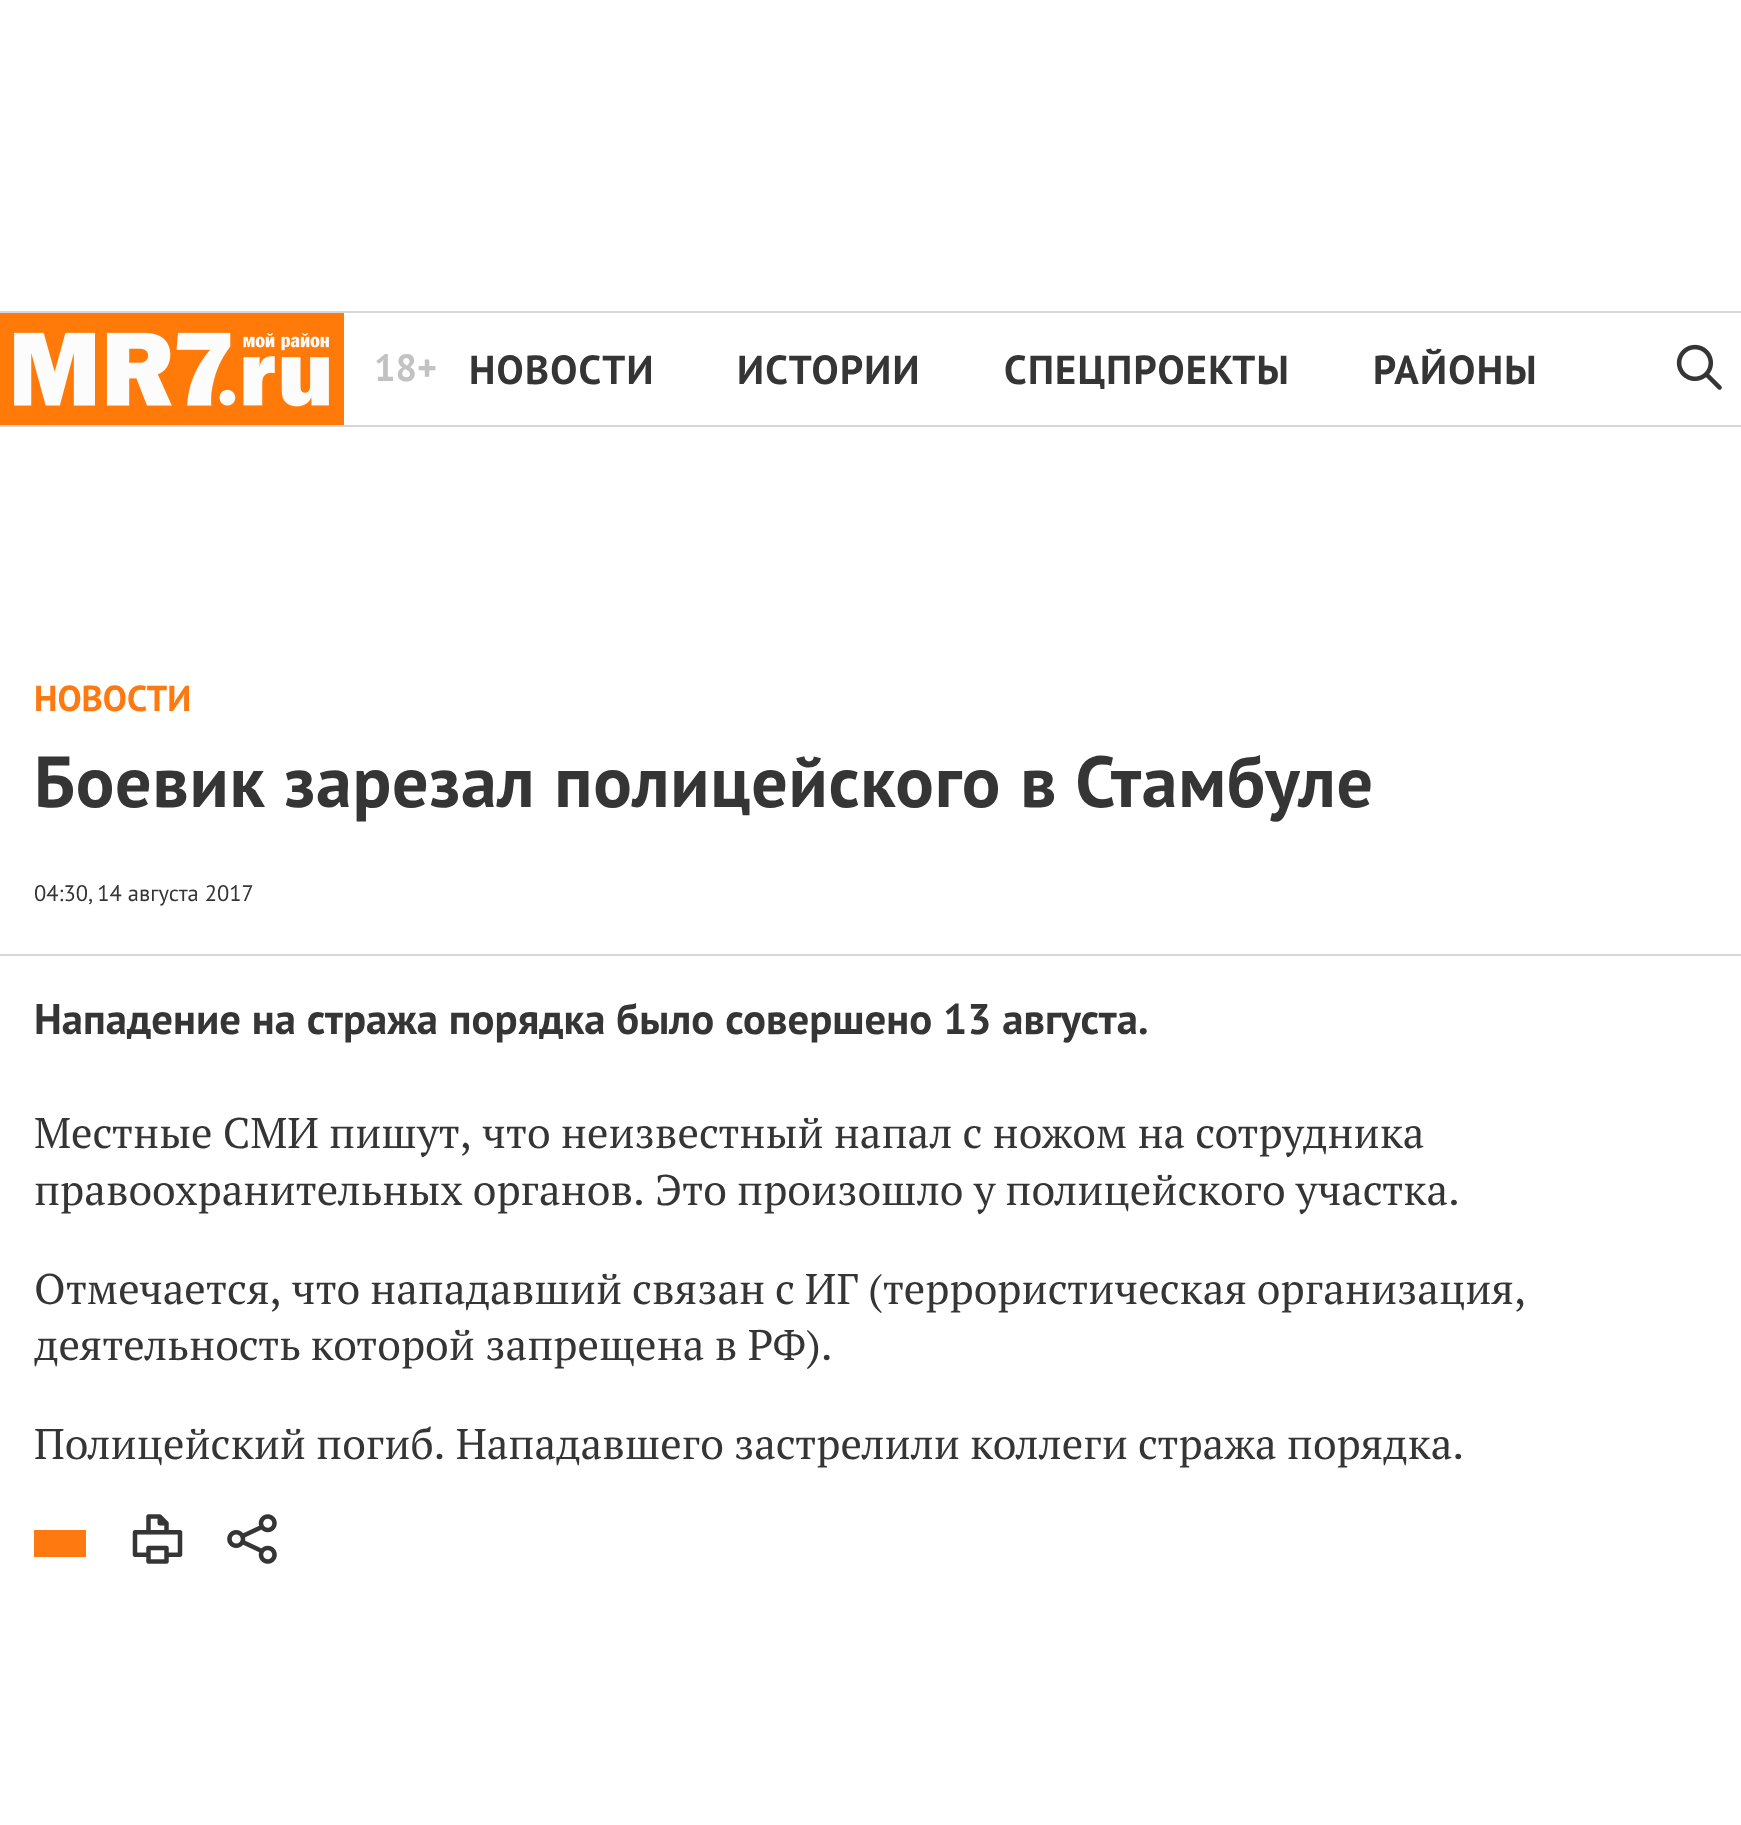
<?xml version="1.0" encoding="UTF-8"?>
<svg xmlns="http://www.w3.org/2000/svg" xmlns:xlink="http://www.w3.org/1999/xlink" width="1741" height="1825">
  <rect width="100%" height="100%" fill="#ffffff" />
  <rect y="311" width="1741" height="2" fill="#d7d7d7" />
  <rect y="425" width="1741" height="2" fill="#d7d7d7" />
  <image x="0" y="313" width="344" height="112" xlink:href="image1.png" />
  <image x="1676" y="344" width="46" height="46" xlink:href="image2.png" />
  <rect y="954" width="1741" height="2" fill="#d7d7d7" />
  <rect x="34" y="1530" width="52" height="27" fill="#ff7911" />
  <image x="132" y="1514" width="51" height="50" xlink:href="image3.png" />
  <image x="227" y="1514" width="50" height="50" xlink:href="image4.png" />
  <text x="374" y="381" style="font-family: PT Sans; font-size: 38px; font-weight: bold; fill: #c2c2c2">18+</text>
  <text x="469" y="384" style="font-family: PT Sans; font-size: 40.5px; font-weight: bold; letter-spacing: 1.25px; fill: #353535">НОВОСТИ</text>
  <text x="737" y="384" style="font-family: PT Sans; font-size: 40.5px; font-weight: bold; letter-spacing: 1.25px; fill: #353535">ИСТОРИИ</text>
  <text x="1004" y="384" style="font-family: PT Sans; font-size: 40.5px; font-weight: bold; letter-spacing: 1.25px; fill: #353535">СПЕЦПРОЕКТЫ</text>
  <text x="1373" y="384" style="font-family: PT Sans; font-size: 40.5px; font-weight: bold; letter-spacing: 1.25px; fill: #353535">РАЙОНЫ</text>
  <text x="34" y="711" style="font-family: PT Sans; font-size: 36px; font-weight: bold; fill: #ff7911">НОВОСТИ</text>
  <text x="34" y="807" style="font-family: PT Sans; font-size: 72px; font-weight: bold; letter-spacing: 0.7px; fill: #353535">Боевик зарезал полицейского в Стамбуле</text>
  <text x="34" y="901" style="font-family: PT Sans; font-size: 22.5px; fill: #353535">04:30, 14 августа 2017</text>
  <text x="34" y="1034" style="font-family: PT Sans; font-size: 42.75px; font-weight: bold; fill: #353535">Нападение на стража порядка было совершено 13 августа.</text>
  <text x="34" y="1148" word-spacing="-0.25" style="font-family: PT Serif; font-size: 42.75px; fill: #353535">Местные СМИ пишут, что неизвестный напал с ножом на сотрудника</text>
  <text x="34" y="1205" word-spacing="-0.25" style="font-family: PT Serif; font-size: 42.75px; fill: #353535">правоохранительных органов. Это произошло у полицейского участка.</text>
  <text x="34" y="1304" word-spacing="-0.5" style="font-family: PT Serif; font-size: 42.75px; fill: #353535">Отмечается, что нападавший связан с ИГ (террористическая организация,</text>
  <text x="34" y="1360" style="font-family: PT Serif; font-size: 42.75px; fill: #353535">деятельность которой запрещена в РФ).</text>
  <text x="34" y="1459" word-spacing="-0.25" style="font-family: PT Serif; font-size: 42.75px; fill: #353535">Полицейский погиб. Нападавшего застрелили коллеги стража порядка.</text>
</svg>
